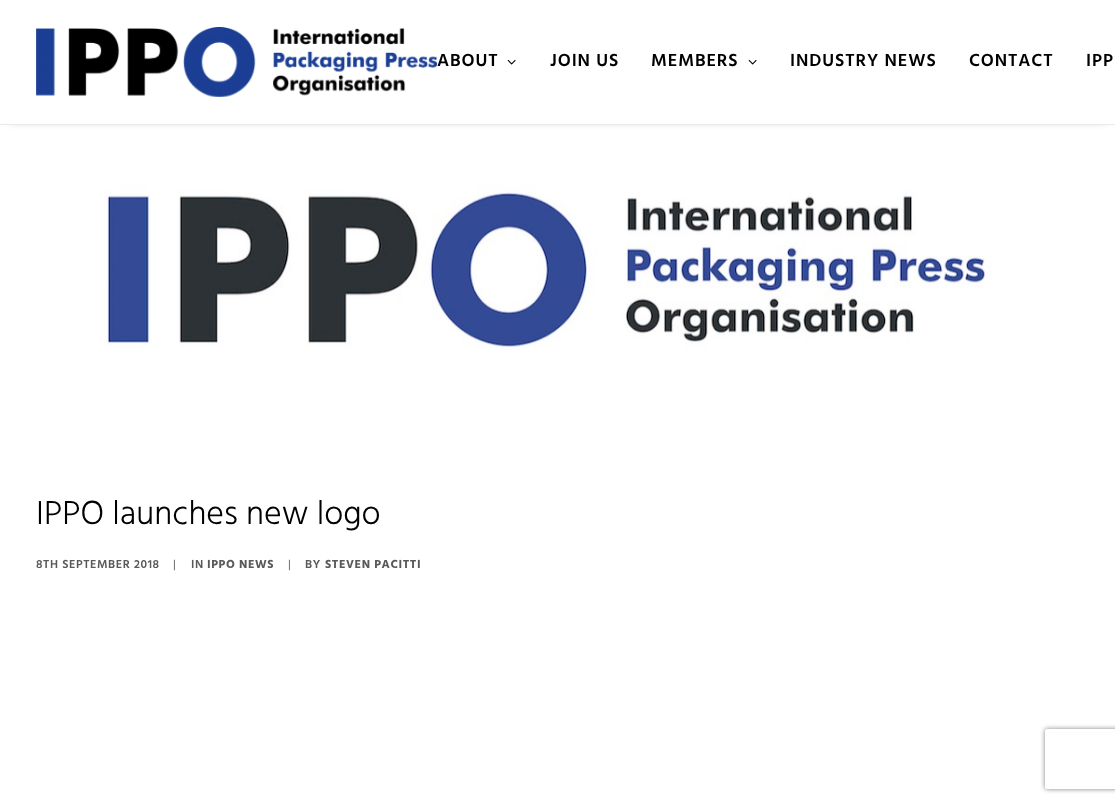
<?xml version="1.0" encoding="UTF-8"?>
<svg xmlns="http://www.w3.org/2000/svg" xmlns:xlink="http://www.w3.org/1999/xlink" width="1115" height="803">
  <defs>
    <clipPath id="clip1"><path d="M 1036 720 h 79 v 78 h -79 z m 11 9 h 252 c 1 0 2 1 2 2 v 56 c 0 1 -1 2 -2 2 h -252 c -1 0 -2 -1 -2 -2 v -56 c 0 -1 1 -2 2 -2 z" clip-rule="evenodd" /></clipPath>
  </defs>
  <rect width="100%" height="100%" fill="#ffffff" />
  <image x="0" y="125" width="1115" height="299" xlink:href="image3.png" />
  <rect x="10" y="14" width="1096" height="105" fill="#000000" fill-opacity="0.6" filter="blur(5px)" />
  <rect y="3" width="1115" height="121" fill="#ffffff" />
  <rect y="124" width="1115" height="1" fill="#eaeaea" />
  <image x="36" y="27" width="401" height="70" xlink:href="image1.png" />
  <image x="507" y="59" width="9" height="6" xlink:href="image2.png" />
  <image x="748" y="59" width="9" height="6" xlink:href="image2.png" />
  <g clip-path="url(#clip1)">
    <rect x="1045" y="729" width="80" height="60" rx="2" fill="#808080" filter="blur(2.5px)" />
  </g>
  <text x="437" y="66" style="font-family: Hind; font-size: 18px; font-weight: 600; letter-spacing: 0.9px; fill: #000000">ABOUT</text>
  <text x="550" y="66" style="font-family: Hind; font-size: 18px; font-weight: 600; letter-spacing: 0.9px; fill: #000000">JOIN US</text>
  <text x="651" y="66" style="font-family: Hind; font-size: 18px; font-weight: 600; letter-spacing: 0.9px; fill: #000000">MEMBERS</text>
  <text x="790" y="66" style="font-family: Hind; font-size: 18px; font-weight: 600; letter-spacing: 0.9px; fill: #000000">INDUSTRY NEWS</text>
  <text x="969" y="66" style="font-family: Hind; font-size: 18px; font-weight: 600; letter-spacing: 0.9px; fill: #000000">CONTACT</text>
  <text x="1086" y="66" style="font-family: Hind; font-size: 18px; font-weight: 600; letter-spacing: 0.9px; fill: #000000">IPP</text>
  <text x="36" y="524" style="font-family: Hind; font-size: 34px; font-weight: 300; fill: #000000">IPPO launches new logo</text>
  <text x="36" y="568" style="font-family: Hind; font-size: 12px; font-weight: 600; letter-spacing: 0.6px; fill: #595959">8TH SEPTEMBER 2018</text>
  <text x="173" y="568" style="font-family: Hind; font-size: 12px; letter-spacing: 0.6px; fill: #595959">|</text>
  <text x="191" y="568" style="font-family: Hind; font-size: 12px; font-weight: 600; letter-spacing: 0.6px; fill: #595959">IN</text>
  <text x="207" y="568" style="font-family: Hind; font-size: 12px; font-weight: bold; letter-spacing: 0.6px; fill: #595959">IPPO NEWS</text>
  <text x="288" y="568" style="font-family: Hind; font-size: 12px; letter-spacing: 0.6px; fill: #595959">|</text>
  <text x="305" y="568" style="font-family: Hind; font-size: 12px; font-weight: 600; letter-spacing: 0.6px; fill: #595959">BY</text>
  <text x="325" y="568" style="font-family: Hind; font-size: 12px; font-weight: bold; letter-spacing: 0.6px; fill: #595959">STEVEN PACITTI</text>
</svg>
